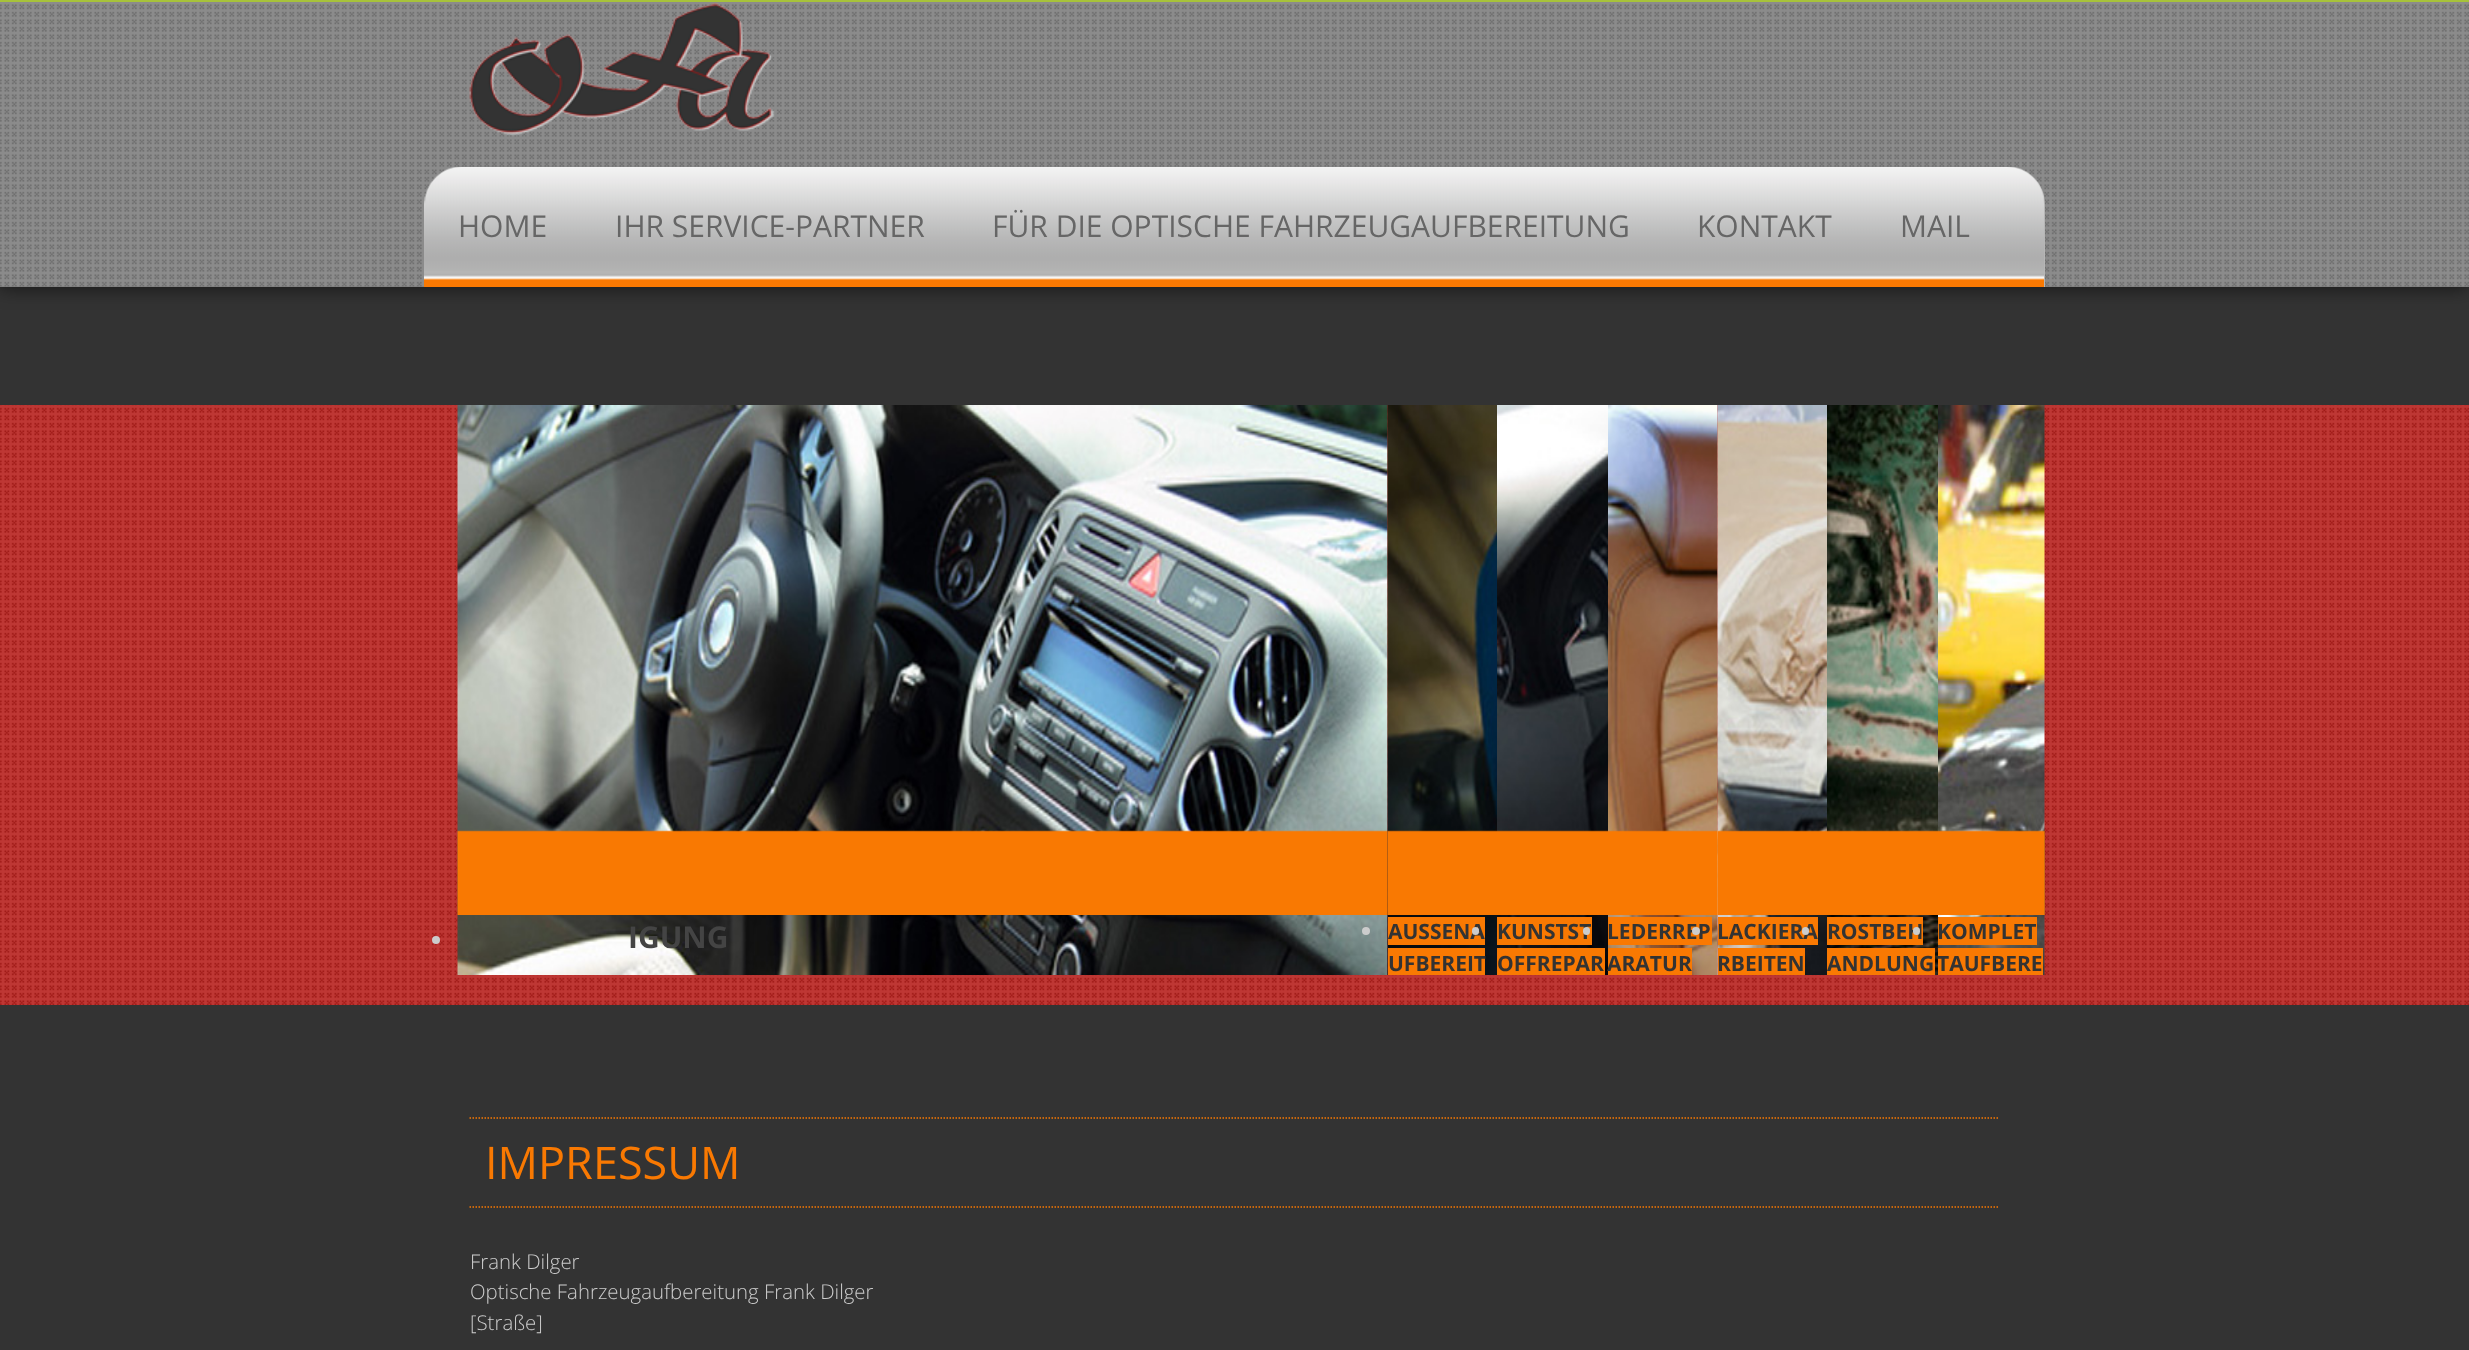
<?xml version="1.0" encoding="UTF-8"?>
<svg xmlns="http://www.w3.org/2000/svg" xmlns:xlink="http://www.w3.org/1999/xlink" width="2469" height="1350">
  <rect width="100%" height="100%" fill="#333333" />
  <rect width="2469" height="287" fill="#000000" fill-opacity="0.65" filter="blur(10px)" />
  <rect y="2" width="2469" height="285" fill="#7a7a7a" />
  <image x="0" y="2" width="2469" height="285" xlink:href="image1.png" />
  <rect width="2469" height="2" fill="#a7c23a" />
  <image x="469" y="3" width="306" height="133" xlink:href="image2.png" />
  <path d="M 463 167 h 1544 c 21 0 38 17 38 38 v 82 h -1620 v -82 c 0 -21 17 -38 38 -38 z" fill="#b6b6b6" />
  <image x="424" y="167" width="1620" height="120" xlink:href="image3.png" />
  <rect y="405" width="2469" height="600" fill="#b51915" />
  <image x="0" y="405" width="2469" height="600" xlink:href="image4.png" />
  <image x="457" y="405" width="931" height="570" xlink:href="image5.png" />
  <image x="457" y="830" width="931" height="85" xlink:href="image6.png" />
  <circle cx="436" cy="940" r="4" fill="#cccccc" />
  <image x="1387" y="405" width="110" height="570" xlink:href="image7.png" />
  <image x="1387" y="830" width="658" height="85" xlink:href="image8.png" />
  <circle cx="1366" cy="931" r="4" fill="#cccccc" />
  <rect x="1388" y="917" width="97" height="28" fill="#f97902" />
  <rect x="1388" y="948" width="97" height="27" fill="#f97902" />
  <image x="1497" y="405" width="111" height="570" xlink:href="image9.png" />
  <image x="1497" y="830" width="548" height="85" xlink:href="image10.png" />
  <rect x="1497" y="917" width="95" height="28" fill="#f97902" />
  <rect x="1497" y="948" width="108" height="27" fill="#f97902" />
  <image x="1608" y="405" width="110" height="570" xlink:href="image11.png" />
  <image x="1608" y="830" width="437" height="85" xlink:href="image12.png" />
  <rect x="1608" y="917" width="104" height="28" fill="#f97902" />
  <rect x="1608" y="948" width="84" height="27" fill="#f97902" />
  <image x="1717" y="405" width="110" height="570" xlink:href="image13.png" />
  <image x="1717" y="830" width="328" height="85" xlink:href="image14.png" />
  <rect x="1718" y="917" width="100" height="28" fill="#f97902" />
  <rect x="1718" y="948" width="87" height="27" fill="#f97902" />
  <image x="1827" y="405" width="111" height="570" xlink:href="image15.png" />
  <image x="1827" y="830" width="111" height="85" xlink:href="image16.png" />
  <rect x="1827" y="917" width="96" height="28" fill="#f97902" />
  <rect x="1827" y="948" width="108" height="27" fill="#f97902" />
  <image x="1938" y="405" width="107" height="570" xlink:href="image17.png" />
  <image x="1938" y="830" width="107" height="85" xlink:href="image18.png" />
  <rect x="1938" y="917" width="99" height="28" fill="#f97902" />
  <rect x="1938" y="948" width="105" height="27" fill="#f97902" />
  <path d="M 469.5 1118 h 1530" fill="none" stroke="#f97902" stroke-width="1.5" stroke-dasharray="1.5 1.5" />
  <path d="M 469.5 1207 h 1530" fill="none" stroke="#f97902" stroke-width="1.5" stroke-dasharray="1.5 1.5" />
  <text x="458" y="237" style="font-family: Open Sans; font-size: 30px; fill: #666666">HOME</text>
  <text x="615" y="237" style="font-family: Open Sans; font-size: 30px; fill: #666666">IHR SERVICE-PARTNER</text>
  <text x="992" y="237" style="font-family: Open Sans; font-size: 30px; fill: #666666">FÜR DIE OPTISCHE FAHRZEUGAUFBEREITUNG</text>
  <text x="1697" y="237" style="font-family: Open Sans; font-size: 30px; fill: #666666">KONTAKT</text>
  <text x="1900" y="237" style="font-family: Open Sans; font-size: 30px; fill: #666666">MAIL</text>
  <text x="628" y="948" style="font-family: Open Sans; font-size: 30px; font-weight: bold; fill: #444444">IGUNG</text>
  <text x="1388" y="939" style="font-family: Open Sans; font-size: 21px; font-weight: bold; fill: #333333">AUSSENA</text>
  <text x="1388" y="971" style="font-family: Open Sans; font-size: 21px; font-weight: bold; fill: #333333">UFBEREIT</text>
  <rect x="1472" y="927" width="7" height="8" rx="3.5" fill="#cccccc" />
  <text x="1497" y="939" style="font-family: Open Sans; font-size: 21px; font-weight: bold; fill: #333333">KUNSTST</text>
  <text x="1497" y="971" style="font-family: Open Sans; font-size: 21px; font-weight: bold; fill: #333333">OFFREPAR</text>
  <rect x="1583" y="927" width="7" height="8" rx="3.5" fill="#cccccc" />
  <text x="1607" y="939" style="font-family: Open Sans; font-size: 21px; font-weight: bold; fill: #333333">LEDERREP</text>
  <text x="1607" y="971" style="font-family: Open Sans; font-size: 21px; font-weight: bold; fill: #333333">ARATUR</text>
  <circle cx="1696" cy="931" r="4" fill="#cccccc" />
  <text x="1717" y="939" style="font-family: Open Sans; font-size: 21px; font-weight: bold; fill: #333333">LACKIERA</text>
  <text x="1717" y="971" style="font-family: Open Sans; font-size: 21px; font-weight: bold; fill: #333333">RBEITEN</text>
  <rect x="1802" y="927" width="7" height="8" rx="3.5" fill="#cccccc" />
  <text x="1827" y="939" style="font-family: Open Sans; font-size: 21px; font-weight: bold; fill: #333333">ROSTBEH</text>
  <text x="1827" y="971" style="font-family: Open Sans; font-size: 21px; font-weight: bold; fill: #333333">ANDLUNG</text>
  <rect x="1913" y="927" width="7" height="8" rx="3.5" fill="#cccccc" />
  <text x="1937" y="939" style="font-family: Open Sans; font-size: 21px; font-weight: bold; fill: #333333">KOMPLET</text>
  <text x="1937" y="971" style="font-family: Open Sans; font-size: 21px; font-weight: bold; fill: #333333">TAUFBERE</text>
  <text x="485" y="1179" style="font-family: Open Sans; font-size: 45px; fill: #f97902">IMPRESSUM</text>
  <text x="470" y="1269" style="font-family: Open Sans; font-size: 20.4px; font-weight: 300; fill: #cccccc">Frank Dilger</text>
  <text x="470" y="1299" style="font-family: Open Sans; font-size: 20.4px; font-weight: 300; fill: #cccccc">Optische Fahrzeugaufbereitung Frank Dilger</text>
  <text x="470" y="1330" style="font-family: Open Sans; font-size: 20.4px; font-weight: 300; fill: #cccccc">[Straße]</text>
</svg>
